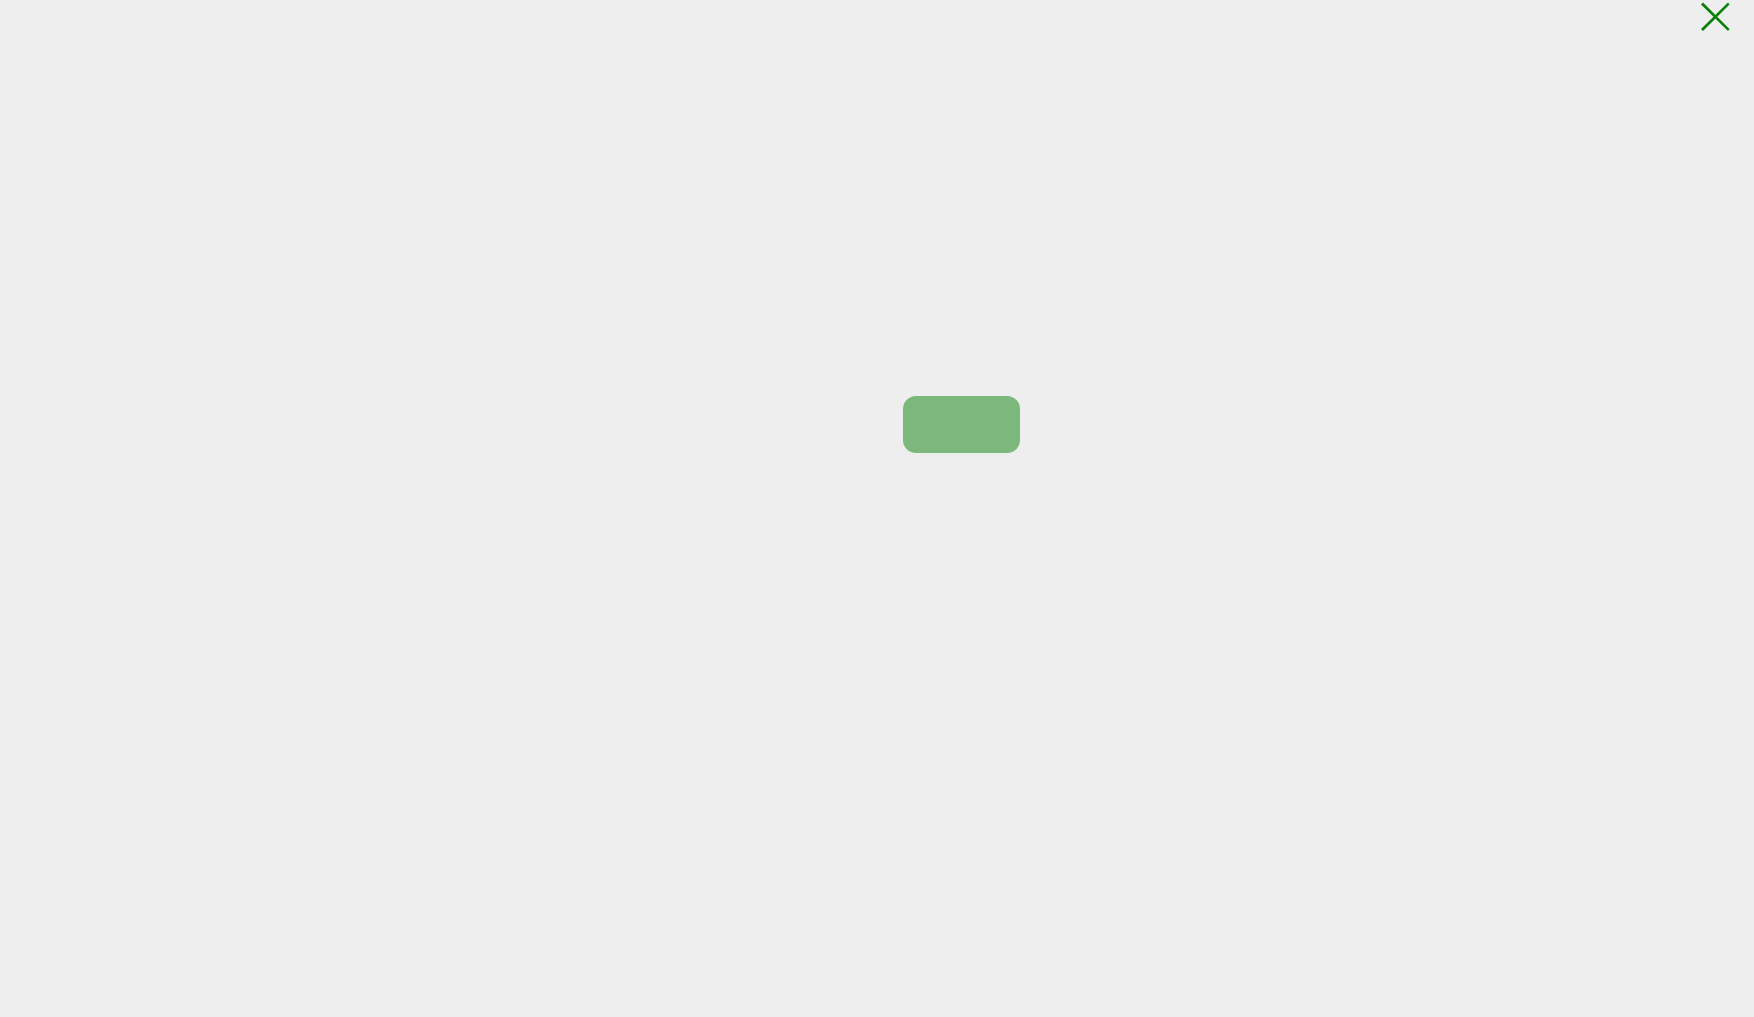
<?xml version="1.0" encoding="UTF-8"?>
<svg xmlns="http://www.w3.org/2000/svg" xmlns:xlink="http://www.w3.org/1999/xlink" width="1754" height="1017">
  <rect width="100%" height="100%" fill="#eeeeee" />
  <path d="M 1701 4.5 l 2 -2 l 26.5 26.5 l -1.5 2 z" fill="#097f09" fill-rule="evenodd" />
  <path d="M 1728 2.5 l 1.5 2 l -26.5 26.5 l -2 -2 z" fill="#097f09" fill-rule="evenodd" />
  <rect x="903" y="396" width="117" height="57" rx="13" fill="#7cb77c" />
</svg>
